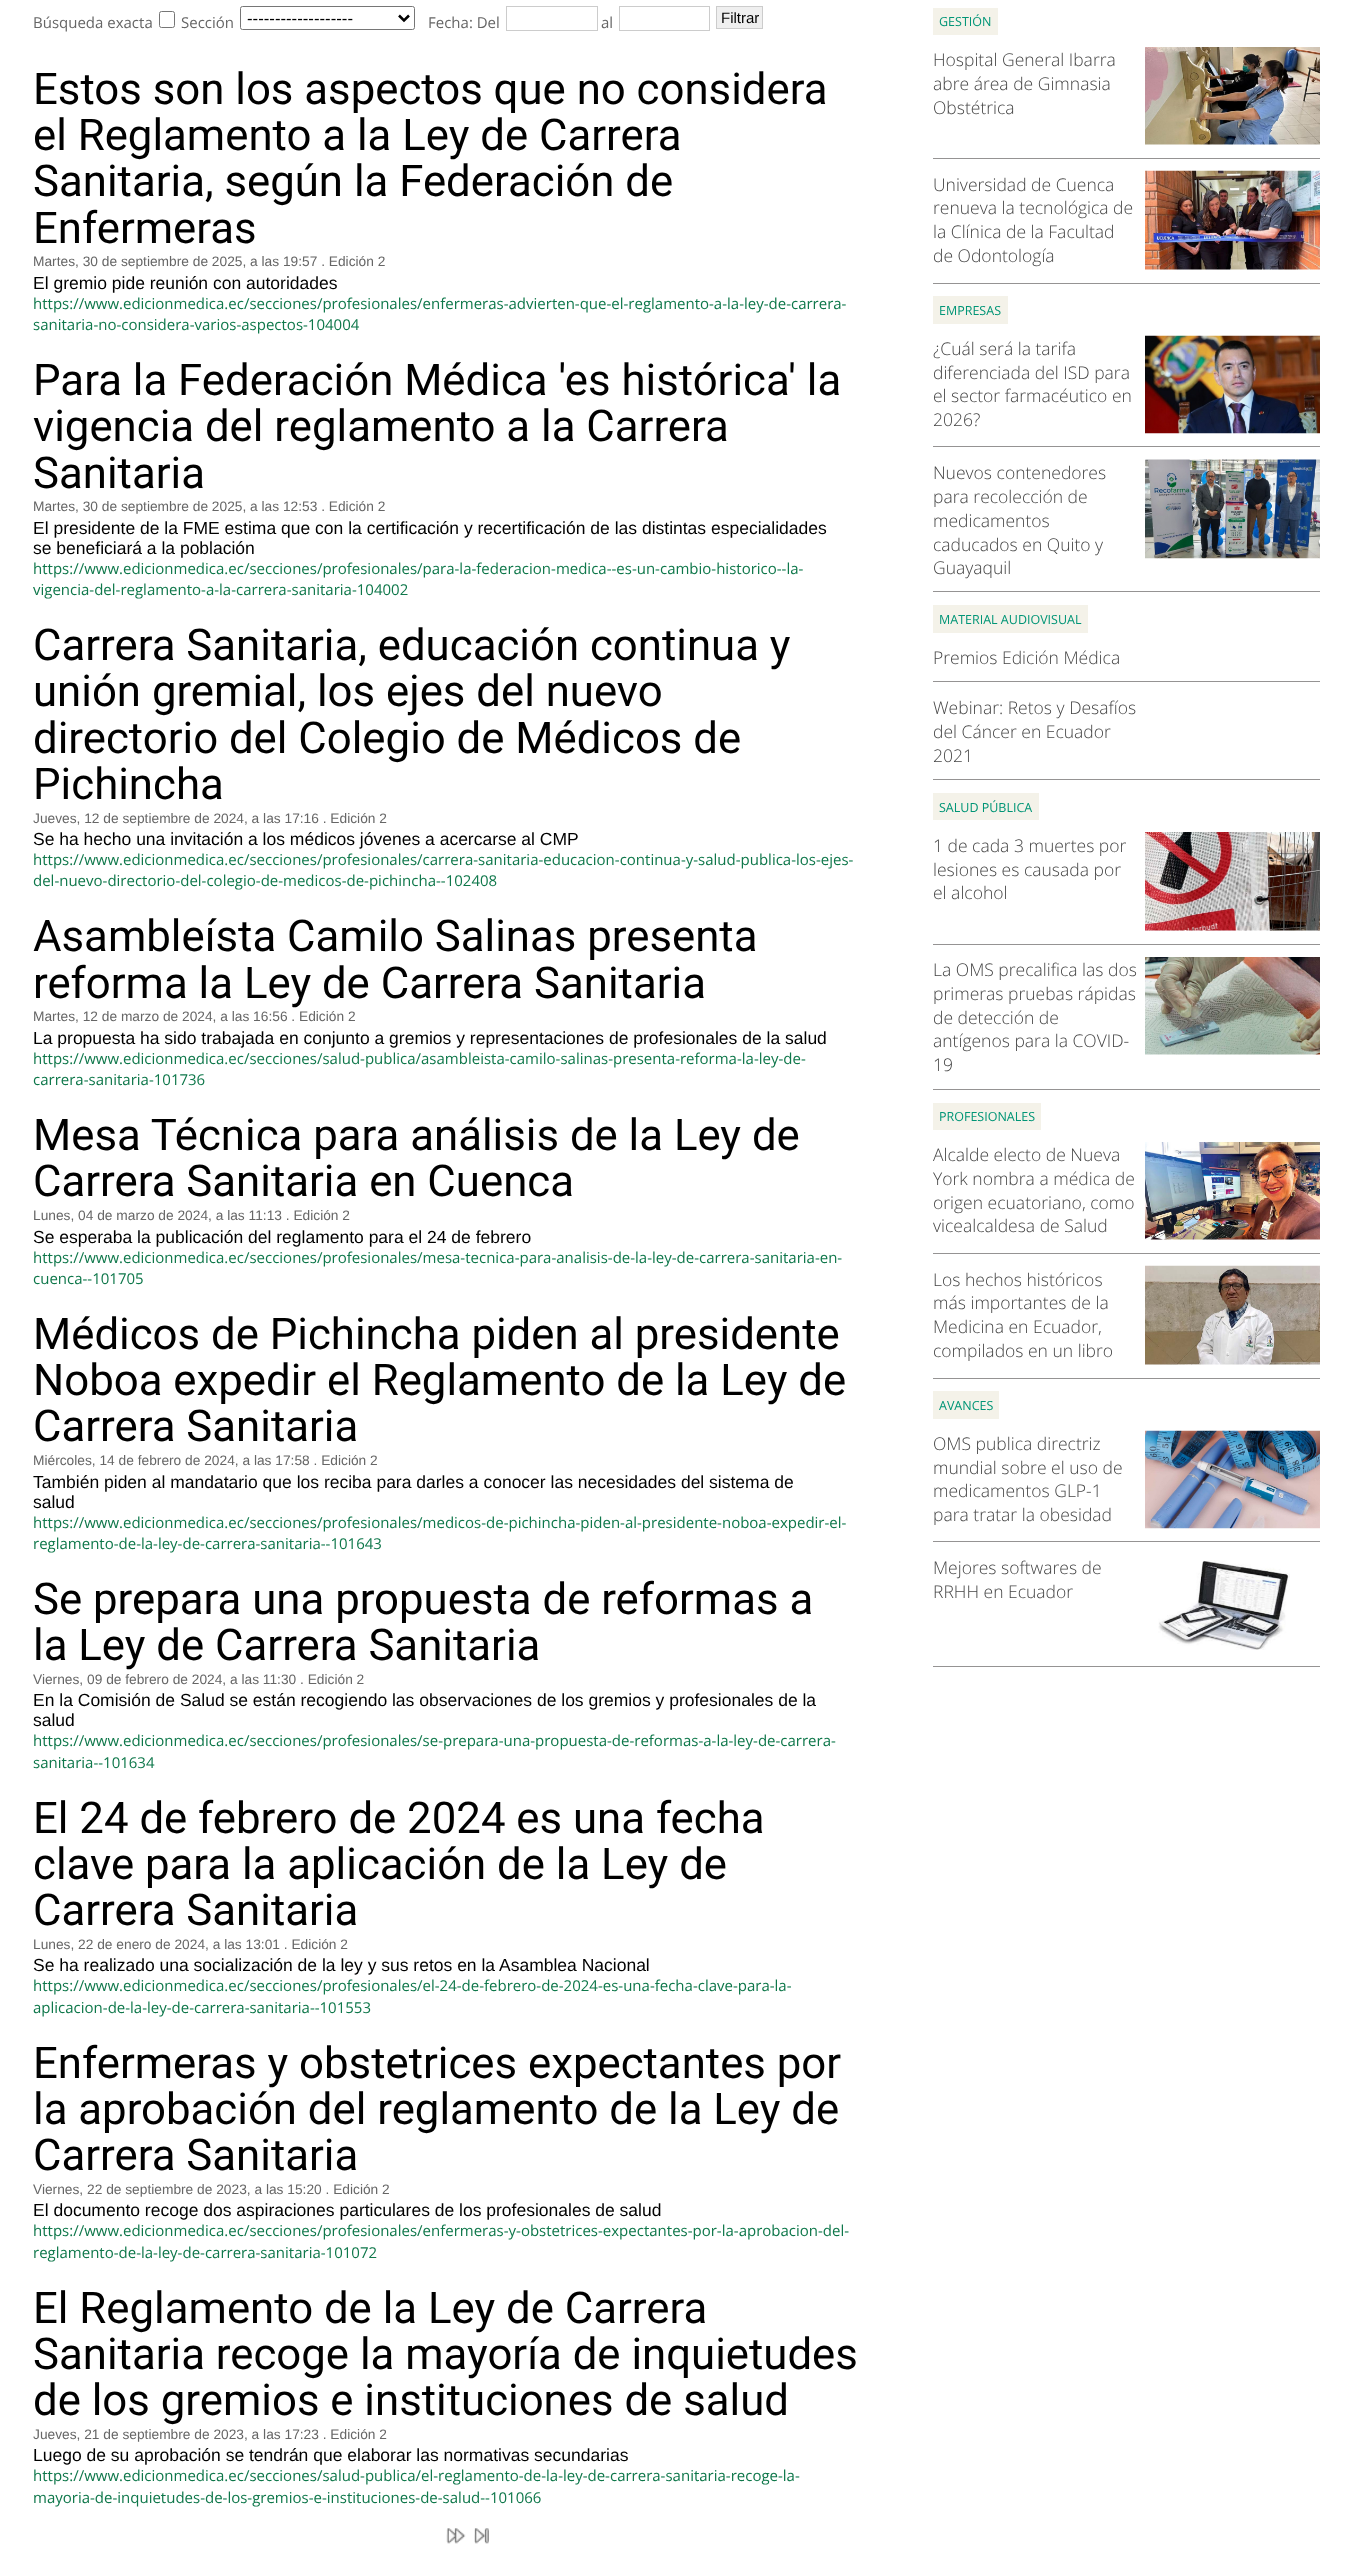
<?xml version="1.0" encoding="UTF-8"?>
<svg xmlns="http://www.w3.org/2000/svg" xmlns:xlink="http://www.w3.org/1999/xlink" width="1352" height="2556">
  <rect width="100%" height="100%" fill="#ffffff" />
  <rect x="159.5" y="11.5" width="15" height="16" rx="2" fill="none" stroke="#767676" />
  <rect x="240.5" y="6.5" width="174" height="23" rx="2" fill="none" stroke="#767676" />
  <path d="M 399 15.5 l 5 5 l 5 -5" fill="none" stroke="#000000" stroke-width="2.5" />
  <rect x="506.5" y="6.5" width="91" height="24" fill="none" stroke="#cccccc" />
  <rect x="619.5" y="6.5" width="90" height="24" fill="none" stroke="#cccccc" />
  <rect x="716.5" y="6.5" width="46" height="22" fill="#efefef" stroke="#cccccc" />
  <image x="446" y="2528" width="20" height="16" xlink:href="image1.png" />
  <image x="474" y="2528" width="15" height="16" xlink:href="image2.png" />
  <rect x="933" y="8" width="65" height="27" fill="#f4f2e9" />
  <rect x="933" y="158" width="387" height="1" fill="#959393" />
  <image x="1145" y="47" width="175" height="98" xlink:href="image3.png" />
  <rect x="933" y="283" width="387" height="1" fill="#959393" />
  <image x="1145" y="170" width="175" height="100" xlink:href="image4.png" />
  <rect x="933" y="296" width="75" height="28" fill="#f4f2e9" />
  <rect x="933" y="446" width="387" height="1" fill="#959393" />
  <image x="1145" y="335" width="175" height="99" xlink:href="image5.png" />
  <rect x="933" y="591" width="387" height="1" fill="#959393" />
  <image x="1145" y="459" width="175" height="100" xlink:href="image6.png" />
  <rect x="933" y="605" width="155" height="28" fill="#f4f2e9" />
  <rect x="933" y="681" width="387" height="1" fill="#959393" />
  <rect x="933" y="779" width="387" height="1" fill="#959393" />
  <rect x="933" y="793" width="106" height="27" fill="#f4f2e9" />
  <rect x="933" y="944" width="387" height="1" fill="#959393" />
  <image x="1145" y="832" width="175" height="99" xlink:href="image7.png" />
  <rect x="933" y="1089" width="387" height="1" fill="#959393" />
  <image x="1145" y="957" width="175" height="98" xlink:href="image8.png" />
  <rect x="933" y="1103" width="108" height="27" fill="#f4f2e9" />
  <rect x="933" y="1253" width="387" height="1" fill="#959393" />
  <image x="1145" y="1142" width="175" height="98" xlink:href="image9.png" />
  <rect x="933" y="1378" width="387" height="1" fill="#959393" />
  <image x="1145" y="1265" width="175" height="100" xlink:href="image10.png" />
  <rect x="933" y="1391" width="66" height="28" fill="#f4f2e9" />
  <rect x="933" y="1541" width="387" height="1" fill="#959393" />
  <image x="1145" y="1430" width="175" height="99" xlink:href="image11.png" />
  <rect x="933" y="1666" width="387" height="1" fill="#959393" />
  <image x="1158" y="1560" width="132" height="90" xlink:href="image12.png" />
  <text x="33" y="28" style="font-family: Open Sans; font-size: 15px; fill: #666666">Búsqueda exacta</text>
  <text x="181" y="28" style="font-family: Open Sans; font-size: 15px; fill: #666666">Sección</text>
  <text x="247" y="24" style="font-family: Liberation Sans; font-size: 16.75px; fill: #000000">-------------------</text>
  <text x="428" y="28" style="font-family: Open Sans; font-size: 15px; fill: #666666">Fecha: Del</text>
  <text x="601" y="28" style="font-family: Open Sans; font-size: 15px; fill: #666666">al</text>
  <text x="721" y="23" style="font-family: Liberation Sans; font-size: 15px; fill: #000000">Filtrar</text>
  <text x="33" y="104" style="font-family: Roboto; font-size: 43.75px; fill: #000000">Estos son los aspectos que no considera</text>
  <text x="33" y="150" style="font-family: Roboto; font-size: 43.75px; fill: #000000">el Reglamento a la Ley de Carrera</text>
  <text x="33" y="196" style="font-family: Roboto; font-size: 43.75px; fill: #000000">Sanitaria, según la Federación de</text>
  <text x="33" y="243" style="font-family: Roboto; font-size: 43.75px; fill: #000000">Enfermeras</text>
  <text x="33" y="266" style="font-family: Liberation Sans; font-size: 13.75px; fill: #666666">Martes, 30 de septiembre de 2025, a las 19:57 . Edición 2</text>
  <text x="33" y="289" style="font-family: Liberation Sans; font-size: 17.5px; fill: #000000">El gremio pide reunión con autoridades</text>
  <text x="33" y="309" style="font-family: Open Sans; font-size: 15px; fill: #0e774a">https://www.edicionmedica.ec/secciones/profesionales/enfermeras-advierten-que-el-reglamento-a-la-ley-de-carrera-</text>
  <text x="33" y="330" style="font-family: Open Sans; font-size: 15px; fill: #0e774a">sanitaria-no-considera-varios-aspectos-104004</text>
  <text x="33" y="395" style="font-family: Roboto; font-size: 43.75px; fill: #000000">Para la Federación Médica 'es histórica' la</text>
  <text x="33" y="441" style="font-family: Roboto; font-size: 43.75px; fill: #000000">vigencia del reglamento a la Carrera</text>
  <text x="33" y="488" style="font-family: Roboto; font-size: 43.75px; fill: #000000">Sanitaria</text>
  <text x="33" y="511" style="font-family: Liberation Sans; font-size: 13.75px; fill: #666666">Martes, 30 de septiembre de 2025, a las 12:53 . Edición 2</text>
  <text x="33" y="534" style="font-family: Liberation Sans; font-size: 17.5px; fill: #000000">El presidente de la FME estima que con la certificación y recertificación de las distintas especialidades</text>
  <text x="33" y="554" style="font-family: Liberation Sans; font-size: 17.5px; fill: #000000">se beneficiará a la población</text>
  <text x="33" y="574" style="font-family: Open Sans; font-size: 15px; fill: #0e774a">https://www.edicionmedica.ec/secciones/profesionales/para-la-federacion-medica--es-un-cambio-historico--la-</text>
  <text x="33" y="595" style="font-family: Open Sans; font-size: 15px; fill: #0e774a">vigencia-del-reglamento-a-la-carrera-sanitaria-104002</text>
  <text x="33" y="660" style="font-family: Roboto; font-size: 43.75px; fill: #000000">Carrera Sanitaria, educación continua y</text>
  <text x="33" y="706" style="font-family: Roboto; font-size: 43.75px; fill: #000000">unión gremial, los ejes del nuevo</text>
  <text x="33" y="753" style="font-family: Roboto; font-size: 43.75px; fill: #000000">directorio del Colegio de Médicos de</text>
  <text x="33" y="799" style="font-family: Roboto; font-size: 43.75px; fill: #000000">Pichincha</text>
  <text x="33" y="823" style="font-family: Liberation Sans; font-size: 13.75px; fill: #666666">Jueves, 12 de septiembre de 2024, a las 17:16 . Edición 2</text>
  <text x="33" y="845" style="font-family: Liberation Sans; font-size: 17.5px; fill: #000000">Se ha hecho una invitación a los médicos jóvenes a acercarse al CMP</text>
  <text x="33" y="865" style="font-family: Open Sans; font-size: 15px; fill: #0e774a">https://www.edicionmedica.ec/secciones/profesionales/carrera-sanitaria-educacion-continua-y-salud-publica-los-ejes-</text>
  <text x="33" y="886" style="font-family: Open Sans; font-size: 15px; fill: #0e774a">del-nuevo-directorio-del-colegio-de-medicos-de-pichincha--102408</text>
  <text x="33" y="951" style="font-family: Roboto; font-size: 43.75px; fill: #000000">Asambleísta Camilo Salinas presenta</text>
  <text x="33" y="998" style="font-family: Roboto; font-size: 43.75px; fill: #000000">reforma la Ley de Carrera Sanitaria</text>
  <text x="33" y="1021" style="font-family: Liberation Sans; font-size: 13.75px; fill: #666666">Martes, 12 de marzo de 2024, a las 16:56 . Edición 2</text>
  <text x="33" y="1044" style="font-family: Liberation Sans; font-size: 17.5px; fill: #000000">La propuesta ha sido trabajada en conjunto a gremios y representaciones de profesionales de la salud</text>
  <text x="33" y="1064" style="font-family: Open Sans; font-size: 15px; fill: #0e774a">https://www.edicionmedica.ec/secciones/salud-publica/asambleista-camilo-salinas-presenta-reforma-la-ley-de-</text>
  <text x="33" y="1085" style="font-family: Open Sans; font-size: 15px; fill: #0e774a">carrera-sanitaria-101736</text>
  <text x="33" y="1150" style="font-family: Roboto; font-size: 43.75px; fill: #000000">Mesa Técnica para análisis de la Ley de</text>
  <text x="33" y="1196" style="font-family: Roboto; font-size: 43.75px; fill: #000000">Carrera Sanitaria en Cuenca</text>
  <text x="33" y="1220" style="font-family: Liberation Sans; font-size: 13.75px; fill: #666666">Lunes, 04 de marzo de 2024, a las 11:13 . Edición 2</text>
  <text x="33" y="1243" style="font-family: Liberation Sans; font-size: 17.5px; fill: #000000">Se esperaba la publicación del reglamento para el 24 de febrero</text>
  <text x="33" y="1263" style="font-family: Open Sans; font-size: 15px; fill: #0e774a">https://www.edicionmedica.ec/secciones/profesionales/mesa-tecnica-para-analisis-de-la-ley-de-carrera-sanitaria-en-</text>
  <text x="33" y="1284" style="font-family: Open Sans; font-size: 15px; fill: #0e774a">cuenca--101705</text>
  <text x="33" y="1349" style="font-family: Roboto; font-size: 43.75px; fill: #000000">Médicos de Pichincha piden al presidente</text>
  <text x="33" y="1395" style="font-family: Roboto; font-size: 43.75px; fill: #000000">Noboa expedir el Reglamento de la Ley de</text>
  <text x="33" y="1441" style="font-family: Roboto; font-size: 43.75px; fill: #000000">Carrera Sanitaria</text>
  <text x="33" y="1465" style="font-family: Liberation Sans; font-size: 13.75px; fill: #666666">Miércoles, 14 de febrero de 2024, a las 17:58 . Edición 2</text>
  <text x="33" y="1488" style="font-family: Liberation Sans; font-size: 17.5px; fill: #000000">También piden al mandatario que los reciba para darles a conocer las necesidades del sistema de</text>
  <text x="33" y="1508" style="font-family: Liberation Sans; font-size: 17.5px; fill: #000000">salud</text>
  <text x="33" y="1528" style="font-family: Open Sans; font-size: 15px; fill: #0e774a">https://www.edicionmedica.ec/secciones/profesionales/medicos-de-pichincha-piden-al-presidente-noboa-expedir-el-</text>
  <text x="33" y="1549" style="font-family: Open Sans; font-size: 15px; fill: #0e774a">reglamento-de-la-ley-de-carrera-sanitaria--101643</text>
  <text x="33" y="1614" style="font-family: Roboto; font-size: 43.75px; fill: #000000">Se prepara una propuesta de reformas a</text>
  <text x="33" y="1660" style="font-family: Roboto; font-size: 43.75px; fill: #000000">la Ley de Carrera Sanitaria</text>
  <text x="33" y="1684" style="font-family: Liberation Sans; font-size: 13.75px; fill: #666666">Viernes, 09 de febrero de 2024, a las 11:30 . Edición 2</text>
  <text x="33" y="1706" style="font-family: Liberation Sans; font-size: 17.5px; fill: #000000">En la Comisión de Salud se están recogiendo las observaciones de los gremios y profesionales de la</text>
  <text x="33" y="1726" style="font-family: Liberation Sans; font-size: 17.5px; fill: #000000">salud</text>
  <text x="33" y="1746" style="font-family: Open Sans; font-size: 15px; fill: #0e774a">https://www.edicionmedica.ec/secciones/profesionales/se-prepara-una-propuesta-de-reformas-a-la-ley-de-carrera-</text>
  <text x="33" y="1768" style="font-family: Open Sans; font-size: 15px; fill: #0e774a">sanitaria--101634</text>
  <text x="33" y="1833" style="font-family: Roboto; font-size: 43.75px; fill: #000000">El 24 de febrero de 2024 es una fecha</text>
  <text x="33" y="1879" style="font-family: Roboto; font-size: 43.75px; fill: #000000">clave para la aplicación de la Ley de</text>
  <text x="33" y="1925" style="font-family: Roboto; font-size: 43.75px; fill: #000000">Carrera Sanitaria</text>
  <text x="33" y="1949" style="font-family: Liberation Sans; font-size: 13.75px; fill: #666666">Lunes, 22 de enero de 2024, a las 13:01 . Edición 2</text>
  <text x="33" y="1971" style="font-family: Liberation Sans; font-size: 17.5px; fill: #000000">Se ha realizado una socialización de la ley y sus retos en la Asamblea Nacional</text>
  <text x="33" y="1991" style="font-family: Open Sans; font-size: 15px; fill: #0e774a">https://www.edicionmedica.ec/secciones/profesionales/el-24-de-febrero-de-2024-es-una-fecha-clave-para-la-</text>
  <text x="33" y="2013" style="font-family: Open Sans; font-size: 15px; fill: #0e774a">aplicacion-de-la-ley-de-carrera-sanitaria--101553</text>
  <text x="33" y="2078" style="font-family: Roboto; font-size: 43.75px; fill: #000000">Enfermeras y obstetrices expectantes por</text>
  <text x="33" y="2124" style="font-family: Roboto; font-size: 43.75px; fill: #000000">la aprobación del reglamento de la Ley de</text>
  <text x="33" y="2170" style="font-family: Roboto; font-size: 43.75px; fill: #000000">Carrera Sanitaria</text>
  <text x="33" y="2194" style="font-family: Liberation Sans; font-size: 13.75px; fill: #666666">Viernes, 22 de septiembre de 2023, a las 15:20 . Edición 2</text>
  <text x="33" y="2216" style="font-family: Liberation Sans; font-size: 17.5px; fill: #000000">El documento recoge dos aspiraciones particulares de los profesionales de salud</text>
  <text x="33" y="2236" style="font-family: Open Sans; font-size: 15px; fill: #0e774a">https://www.edicionmedica.ec/secciones/profesionales/enfermeras-y-obstetrices-expectantes-por-la-aprobacion-del-</text>
  <text x="33" y="2258" style="font-family: Open Sans; font-size: 15px; fill: #0e774a">reglamento-de-la-ley-de-carrera-sanitaria-101072</text>
  <text x="33" y="2323" style="font-family: Roboto; font-size: 43.75px; fill: #000000">El Reglamento de la Ley de Carrera</text>
  <text x="33" y="2369" style="font-family: Roboto; font-size: 43.75px; fill: #000000">Sanitaria recoge la mayoría de inquietudes</text>
  <text x="33" y="2415" style="font-family: Roboto; font-size: 43.75px; fill: #000000">de los gremios e instituciones de salud</text>
  <text x="33" y="2439" style="font-family: Liberation Sans; font-size: 13.75px; fill: #666666">Jueves, 21 de septiembre de 2023, a las 17:23 . Edición 2</text>
  <text x="33" y="2461" style="font-family: Liberation Sans; font-size: 17.5px; fill: #000000">Luego de su aprobación se tendrán que elaborar las normativas secundarias</text>
  <text x="33" y="2481" style="font-family: Open Sans; font-size: 15px; fill: #0e774a">https://www.edicionmedica.ec/secciones/salud-publica/el-reglamento-de-la-ley-de-carrera-sanitaria-recoge-la-</text>
  <text x="33" y="2503" style="font-family: Open Sans; font-size: 15px; fill: #0e774a">mayoria-de-inquietudes-de-los-gremios-e-instituciones-de-salud--101066</text>
  <text x="939" y="26" style="font-family: Open Sans; font-size: 12.5px; fill: #009576">GESTIÓN</text>
  <text x="933" y="66" style="font-family: Open Sans; font-size: 17.5px; font-weight: 300; fill: #464646">Hospital General Ibarra</text>
  <text x="933" y="90" style="font-family: Open Sans; font-size: 17.5px; font-weight: 300; fill: #464646">abre área de Gimnasia</text>
  <text x="933" y="114" style="font-family: Open Sans; font-size: 17.5px; font-weight: 300; fill: #464646">Obstétrica</text>
  <text x="933" y="191" style="font-family: Open Sans; font-size: 17.5px; font-weight: 300; fill: #464646">Universidad de Cuenca</text>
  <text x="933" y="214" style="font-family: Open Sans; font-size: 17.5px; font-weight: 300; fill: #464646">renueva la tecnológica de</text>
  <text x="933" y="238" style="font-family: Open Sans; font-size: 17.5px; font-weight: 300; fill: #464646">la Clínica de la Facultad</text>
  <text x="933" y="262" style="font-family: Open Sans; font-size: 17.5px; font-weight: 300; fill: #464646">de Odontología</text>
  <text x="939" y="315" style="font-family: Open Sans; font-size: 12.5px; fill: #009576">EMPRESAS</text>
  <text x="933" y="355" style="font-family: Open Sans; font-size: 17.5px; font-weight: 300; fill: #464646">¿Cuál será la tarifa</text>
  <text x="933" y="379" style="font-family: Open Sans; font-size: 17.5px; font-weight: 300; fill: #464646">diferenciada del ISD para</text>
  <text x="933" y="402" style="font-family: Open Sans; font-size: 17.5px; font-weight: 300; fill: #464646">el sector farmacéutico en</text>
  <text x="933" y="426" style="font-family: Open Sans; font-size: 17.5px; font-weight: 300; fill: #464646">2026?</text>
  <text x="933" y="479" style="font-family: Open Sans; font-size: 17.5px; font-weight: 300; fill: #464646">Nuevos contenedores</text>
  <text x="933" y="503" style="font-family: Open Sans; font-size: 17.5px; font-weight: 300; fill: #464646">para recolección de</text>
  <text x="933" y="527" style="font-family: Open Sans; font-size: 17.5px; font-weight: 300; fill: #464646">medicamentos</text>
  <text x="933" y="551" style="font-family: Open Sans; font-size: 17.5px; font-weight: 300; fill: #464646">caducados en Quito y</text>
  <text x="933" y="574" style="font-family: Open Sans; font-size: 17.5px; font-weight: 300; fill: #464646">Guayaquil</text>
  <text x="939" y="624" style="font-family: Open Sans; font-size: 12.5px; fill: #009576">MATERIAL AUDIOVISUAL</text>
  <text x="933" y="664" style="font-family: Open Sans; font-size: 17.5px; font-weight: 300; fill: #464646">Premios Edición Médica</text>
  <text x="933" y="714" style="font-family: Open Sans; font-size: 17.5px; font-weight: 300; fill: #464646">Webinar: Retos y Desafíos</text>
  <text x="933" y="738" style="font-family: Open Sans; font-size: 17.5px; font-weight: 300; fill: #464646">del Cáncer en Ecuador</text>
  <text x="933" y="762" style="font-family: Open Sans; font-size: 17.5px; font-weight: 300; fill: #464646">2021</text>
  <text x="939" y="812" style="font-family: Open Sans; font-size: 12.5px; fill: #009576">SALUD PÚBLICA</text>
  <text x="933" y="852" style="font-family: Open Sans; font-size: 17.5px; font-weight: 300; fill: #464646">1 de cada 3 muertes por</text>
  <text x="933" y="876" style="font-family: Open Sans; font-size: 17.5px; font-weight: 300; fill: #464646">lesiones es causada por</text>
  <text x="933" y="899" style="font-family: Open Sans; font-size: 17.5px; font-weight: 300; fill: #464646">el alcohol</text>
  <text x="933" y="976" style="font-family: Open Sans; font-size: 17.5px; font-weight: 300; fill: #464646">La OMS precalifica las dos</text>
  <text x="933" y="1000" style="font-family: Open Sans; font-size: 17.5px; font-weight: 300; fill: #464646">primeras pruebas rápidas</text>
  <text x="933" y="1024" style="font-family: Open Sans; font-size: 17.5px; font-weight: 300; fill: #464646">de detección de</text>
  <text x="933" y="1047" style="font-family: Open Sans; font-size: 17.5px; font-weight: 300; fill: #464646">antígenos para la COVID-</text>
  <text x="933" y="1071" style="font-family: Open Sans; font-size: 17.5px; font-weight: 300; fill: #464646">19</text>
  <text x="939" y="1121" style="font-family: Open Sans; font-size: 12.5px; fill: #009576">PROFESIONALES</text>
  <text x="933" y="1161" style="font-family: Open Sans; font-size: 17.5px; font-weight: 300; fill: #464646">Alcalde electo de Nueva</text>
  <text x="933" y="1185" style="font-family: Open Sans; font-size: 17.5px; font-weight: 300; fill: #464646">York nombra a médica de</text>
  <text x="933" y="1209" style="font-family: Open Sans; font-size: 17.5px; font-weight: 300; fill: #464646">origen ecuatoriano, como</text>
  <text x="933" y="1232" style="font-family: Open Sans; font-size: 17.5px; font-weight: 300; fill: #464646">vicealcaldesa de Salud</text>
  <text x="933" y="1286" style="font-family: Open Sans; font-size: 17.5px; font-weight: 300; fill: #464646">Los hechos históricos</text>
  <text x="933" y="1309" style="font-family: Open Sans; font-size: 17.5px; font-weight: 300; fill: #464646">más importantes de la</text>
  <text x="933" y="1333" style="font-family: Open Sans; font-size: 17.5px; font-weight: 300; fill: #464646">Medicina en Ecuador,</text>
  <text x="933" y="1357" style="font-family: Open Sans; font-size: 17.5px; font-weight: 300; fill: #464646">compilados en un libro</text>
  <text x="939" y="1410" style="font-family: Open Sans; font-size: 12.5px; fill: #009576">AVANCES</text>
  <text x="933" y="1450" style="font-family: Open Sans; font-size: 17.5px; font-weight: 300; fill: #464646">OMS publica directriz</text>
  <text x="933" y="1474" style="font-family: Open Sans; font-size: 17.5px; font-weight: 300; fill: #464646">mundial sobre el uso de</text>
  <text x="933" y="1497" style="font-family: Open Sans; font-size: 17.5px; font-weight: 300; fill: #464646">medicamentos GLP-1</text>
  <text x="933" y="1521" style="font-family: Open Sans; font-size: 17.5px; font-weight: 300; fill: #464646">para tratar la obesidad</text>
  <text x="933" y="1574" style="font-family: Open Sans; font-size: 17.5px; font-weight: 300; fill: #464646">Mejores softwares de</text>
  <text x="933" y="1598" style="font-family: Open Sans; font-size: 17.5px; font-weight: 300; fill: #464646">RRHH en Ecuador</text>
</svg>
